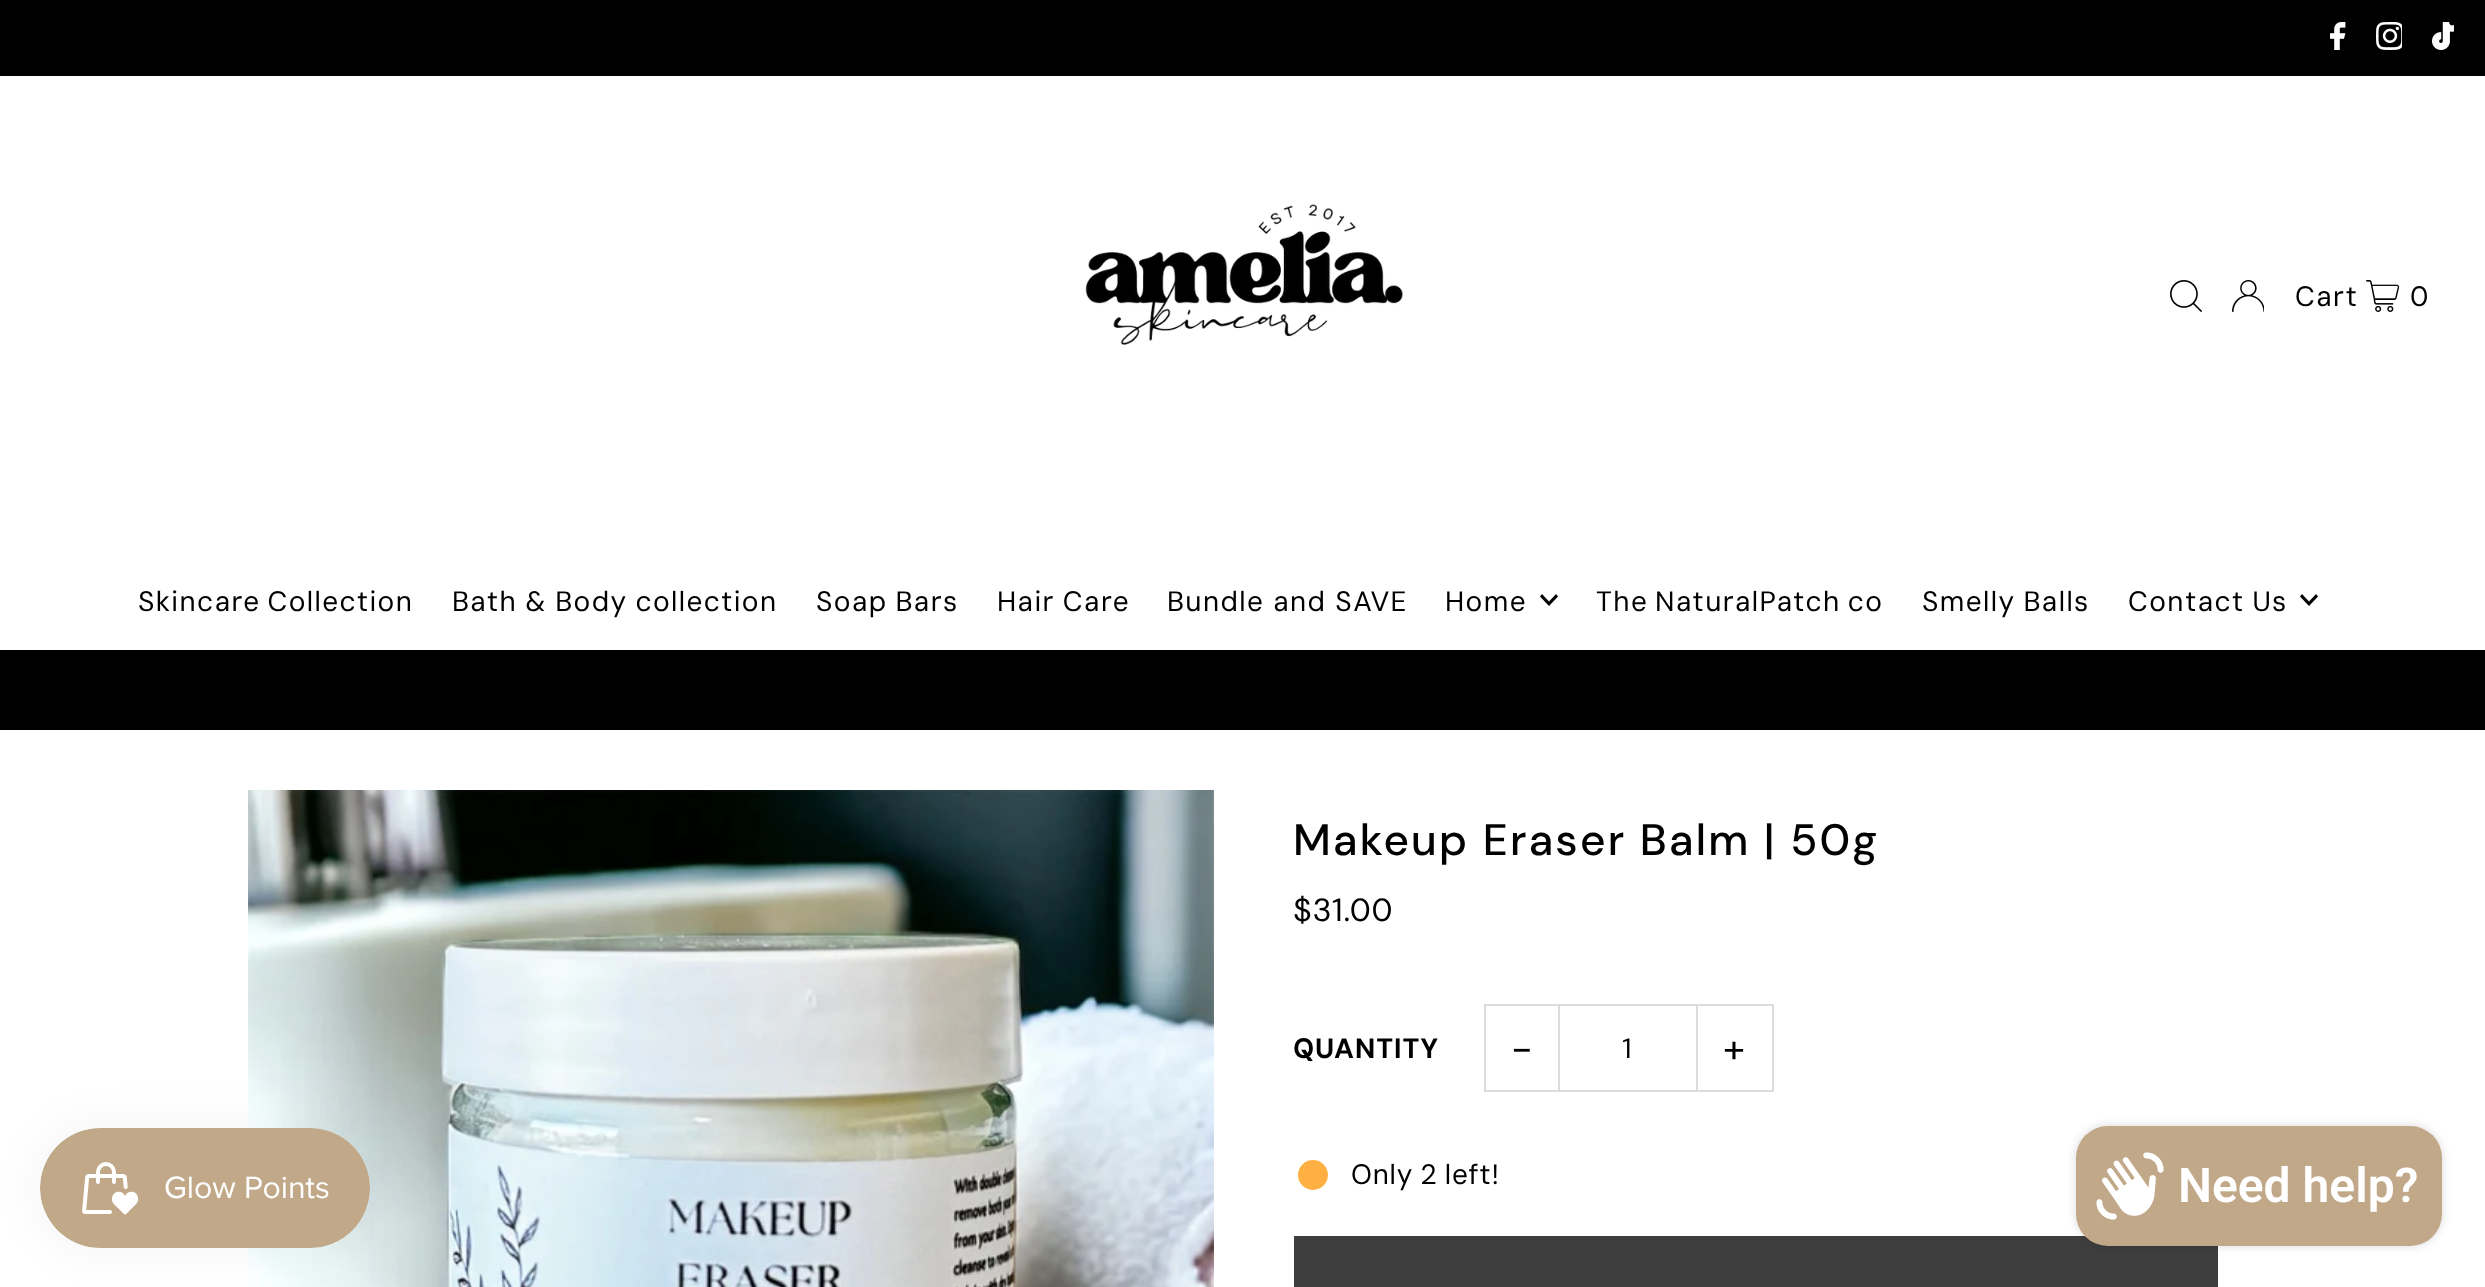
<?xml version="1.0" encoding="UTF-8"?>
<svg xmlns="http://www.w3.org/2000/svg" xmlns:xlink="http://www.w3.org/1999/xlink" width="2485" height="1287">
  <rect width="100%" height="100%" fill="#ffffff" />
  <rect width="2485" height="76" fill="#000000" />
  <image x="2330" y="22" width="16" height="28" xlink:href="image1.png" />
  <image x="2376" y="22" width="26" height="28" xlink:href="image2.png" />
  <image x="2432" y="22" width="22" height="28" xlink:href="image3.png" />
  <image x="1085" y="204" width="318" height="141" xlink:href="image4.png" />
  <image x="2170" y="280" width="32" height="32" xlink:href="image5.png" />
  <image x="2232" y="280" width="32" height="32" xlink:href="image6.png" />
  <image x="2366" y="280" width="34" height="32" xlink:href="image7.png" />
  <path d="M 1556 594 l -7 7.5 l -7 -7.5 l -2 2.5 l 9 9.5 l 9 -9.5 z" fill="#000000" />
  <path d="M 2316 594 l -7 7.5 l -7 -7.5 l -2 2.5 l 9 9.5 l 9 -9.5 z" fill="#000000" />
  <rect y="650" width="2485" height="80" fill="#000000" />
  <image x="248" y="790" width="966" height="497" xlink:href="image8.png" />
  <rect x="1484" y="1004" width="76" height="2" fill="#dcdcdc" />
  <rect x="1484" y="1090" width="76" height="2" fill="#dcdcdc" />
  <rect x="1484" y="1004" width="2" height="88" fill="#dcdcdc" />
  <rect x="1559" y="1005" width="138" height="86" fill="none" stroke="#dcdcdc" stroke-width="2" />
  <rect x="1698" y="1004" width="76" height="2" fill="#dcdcdc" />
  <rect x="1772" y="1004" width="2" height="88" fill="#dcdcdc" />
  <rect x="1698" y="1090" width="76" height="2" fill="#dcdcdc" />
  <circle cx="1313" cy="1175" r="15" fill="#ffb042" />
  <rect x="1294" y="1236" width="924" height="51" fill="#3e3e3e" />
  <rect x="40" y="1128" width="330" height="120" rx="60" fill="#000000" fill-opacity="0.05" filter="blur(25px)" />
  <image x="40" y="1128" width="330" height="120" xlink:href="image9.png" />
  <rect x="2076" y="1126" width="366" height="120" rx="32" fill="#000000" fill-opacity="0.15" filter="blur(5px)" />
  <rect x="2076" y="1126" width="366" height="120" rx="32" fill="#c0a888" />
  <image x="2096" y="1152" width="68" height="68" xlink:href="image10.png" />
  <text x="2295" y="306" style="font-family: DM Sans; font-size: 28px; letter-spacing: 1.4px; fill: #000000">Cart</text>
  <text x="2410" y="306" style="font-family: DM Sans; font-size: 28px; letter-spacing: 1.4px; fill: #000000">0</text>
  <text x="138" y="611" word-spacing="-2" style="font-family: DM Sans; font-size: 28px; letter-spacing: 1.4px; fill: #000000">Skincare Collection</text>
  <text x="452" y="611" word-spacing="-1" style="font-family: DM Sans; font-size: 28px; letter-spacing: 1.4px; fill: #000000">Bath &amp; Body collection</text>
  <text x="816" y="611" word-spacing="-1" style="font-family: DM Sans; font-size: 28px; letter-spacing: 1.4px; fill: #000000">Soap Bars</text>
  <text x="997" y="611" word-spacing="-1" style="font-family: DM Sans; font-size: 28px; letter-spacing: 1.4px; fill: #000000">Hair Care</text>
  <text x="1167" y="611" style="font-family: DM Sans; font-size: 28px; letter-spacing: 1.4px; fill: #000000">Bundle and SAVE</text>
  <text x="1445" y="611" style="font-family: DM Sans; font-size: 28px; letter-spacing: 1.4px; fill: #000000">Home</text>
  <text x="1596" y="611" word-spacing="-2" style="font-family: DM Sans; font-size: 28px; letter-spacing: 1.4px; fill: #000000">The NaturalPatch co</text>
  <text x="1922" y="611" word-spacing="-1" style="font-family: DM Sans; font-size: 28px; letter-spacing: 1.4px; fill: #000000">Smelly Balls</text>
  <text x="2128" y="611" word-spacing="-1" style="font-family: DM Sans; font-size: 28px; letter-spacing: 1.4px; fill: #000000">Contact Us</text>
  <text x="1293" y="855" style="font-family: DM Sans; font-size: 44px; font-weight: 500; letter-spacing: 2.2px; fill: #000000">Makeup Eraser Balm | 50g</text>
  <text x="1293" y="921" style="font-family: DM Sans; font-size: 32px; letter-spacing: 0.75px; fill: #000000">$31.00</text>
  <text x="1293" y="1058" style="font-family: DM Sans; font-size: 28px; font-weight: bold; letter-spacing: 0.75px; fill: #000000">QUANTITY</text>
  <text x="1511" y="1062" style="font-family: 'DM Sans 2'; font-size: 40px; letter-spacing: 1px; fill: #000000">-</text>
  <text x="1622" y="1058" style="font-family: DM Sans; font-size: 28px; letter-spacing: 0.75px; fill: #000000">1</text>
  <text x="1723" y="1062" style="font-family: DM Sans; font-size: 40px; letter-spacing: 1px; fill: #000000">+</text>
  <text x="1351" y="1184" word-spacing="-1" style="font-family: DM Sans; font-size: 28px; letter-spacing: 0.75px; fill: #000000">Only 2 left!</text>
  <text x="2178" y="1202" style="font-family: Roboto; font-size: 48px; font-weight: 600; fill: #ffffff">Need help?</text>
</svg>
